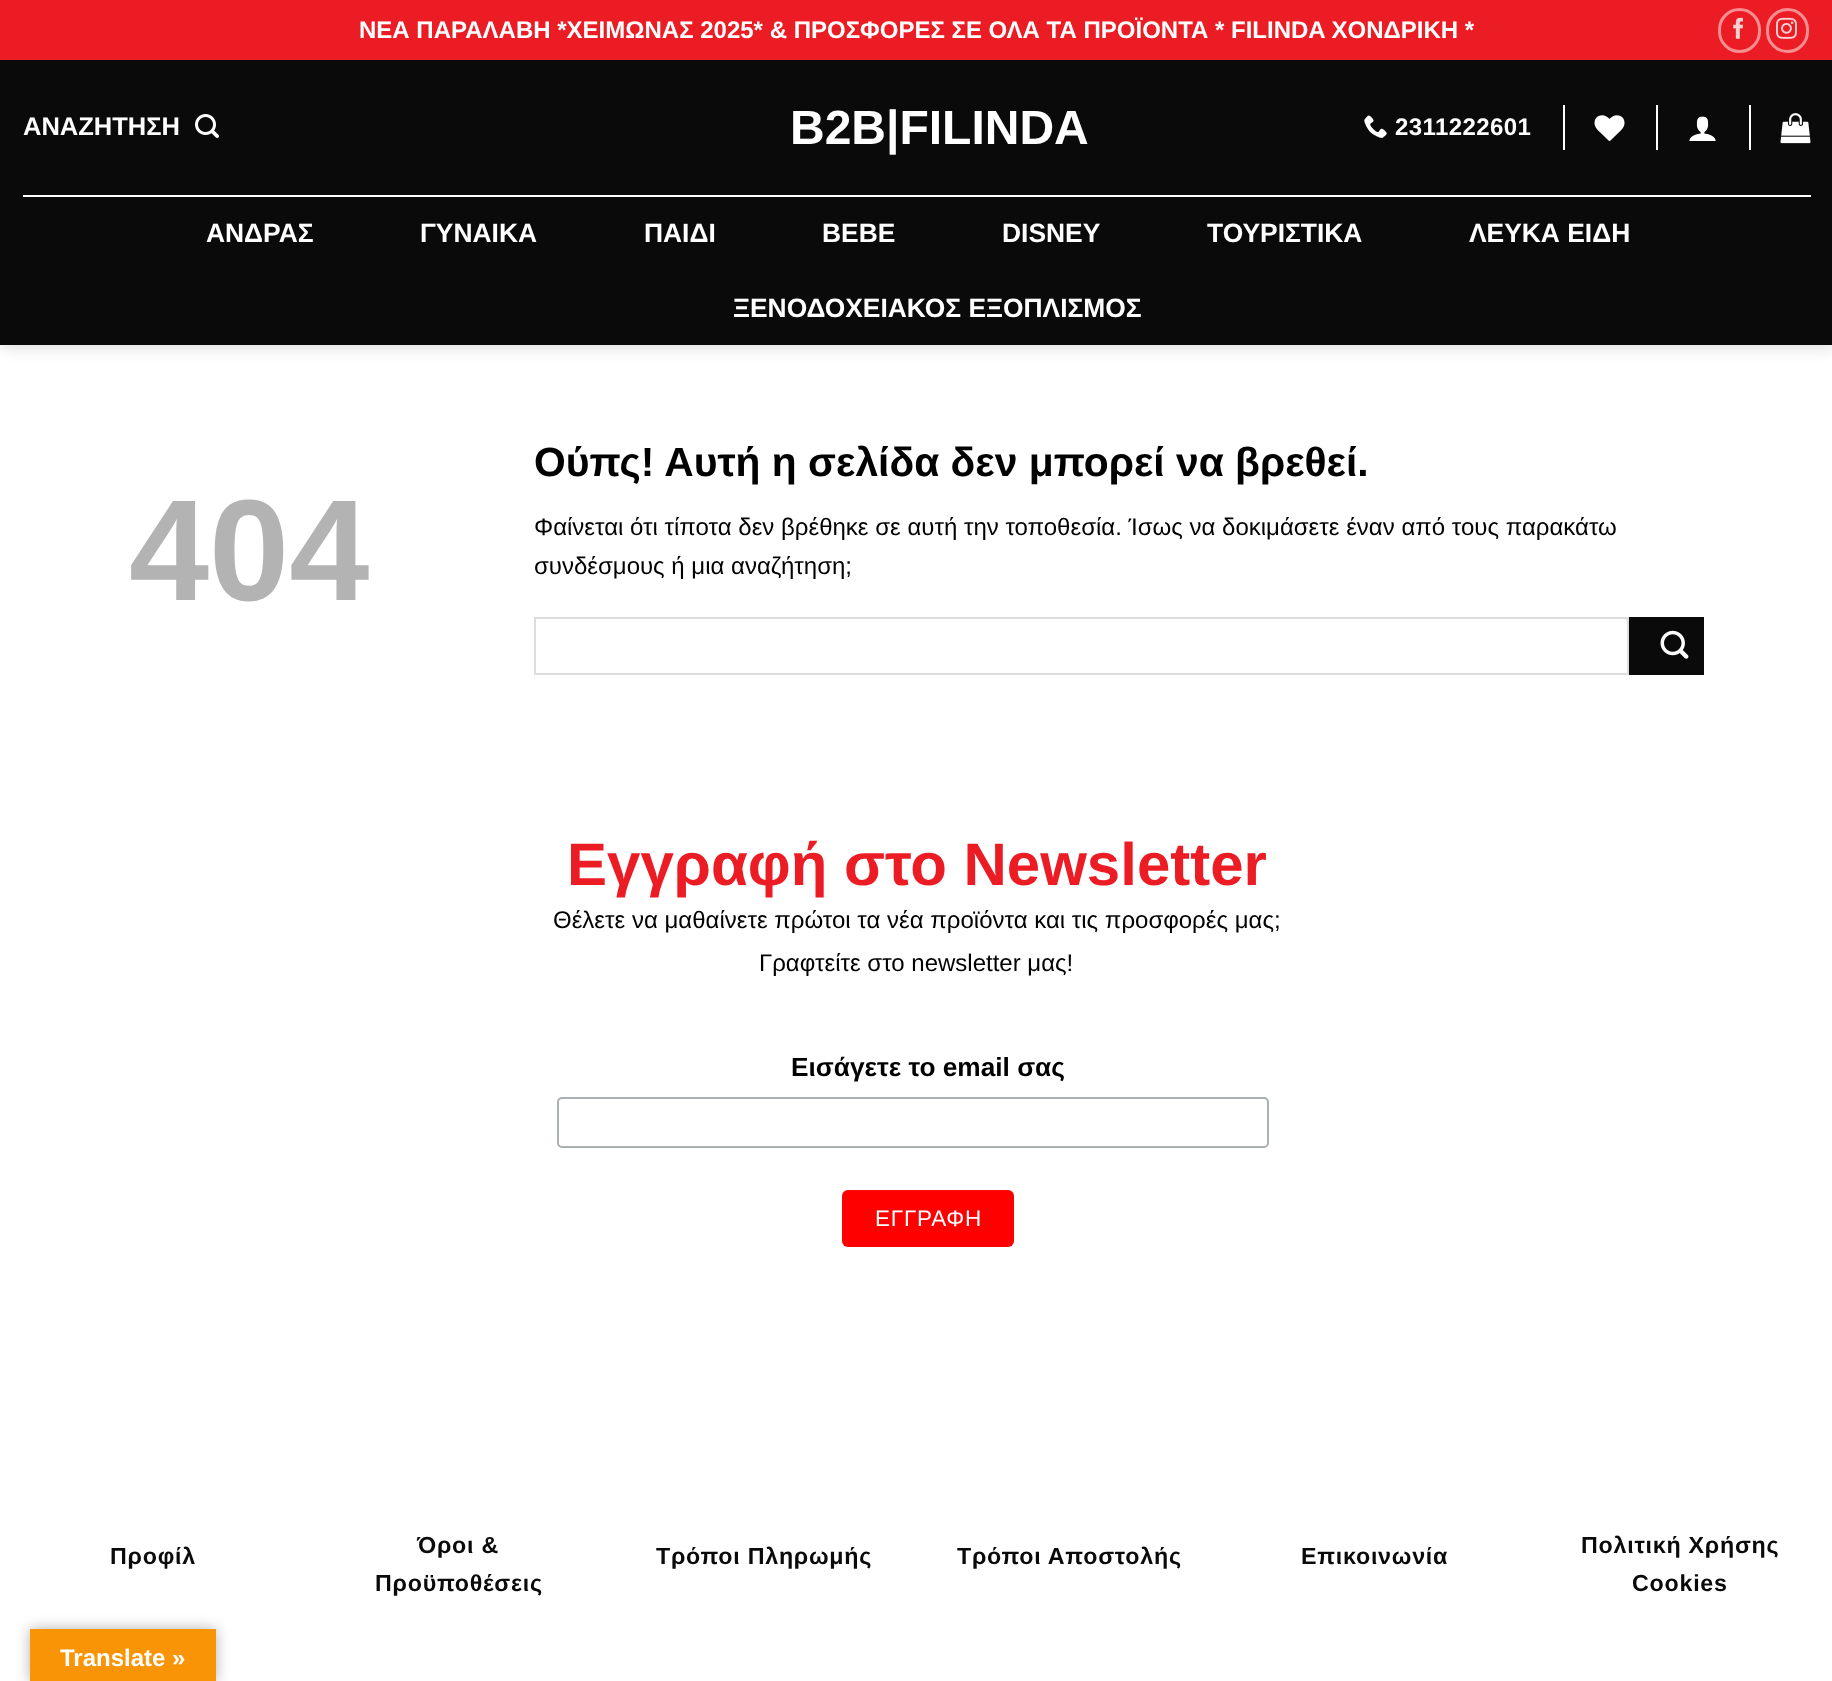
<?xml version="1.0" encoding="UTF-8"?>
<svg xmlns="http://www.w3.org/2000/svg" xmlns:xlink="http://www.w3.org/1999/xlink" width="1832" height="1681">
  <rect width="100%" height="100%" fill="#ffffff" />
  <rect x="2" y="2" width="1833" height="345" fill="#000000" fill-opacity="0.15" filter="blur(7.5px)" />
  <rect width="1832" height="60" fill="#ec1c24" />
  <rect x="1719.5" y="9.5" width="40" height="42" rx="20" fill="none" stroke="#f68e92" stroke-width="3" />
  <image x="1733" y="17" width="10" height="22" xlink:href="image1.png" />
  <rect x="1767.5" y="9.5" width="40" height="42" rx="20" fill="none" stroke="#f68e92" stroke-width="3" />
  <image x="1776" y="17" width="21" height="22" xlink:href="image2.png" />
  <rect y="60" width="1832" height="285" fill="#0a0a0a" />
  <image x="195" y="114" width="24" height="24" xlink:href="image3.png" />
  <image x="1364" y="115" width="23" height="23" xlink:href="image4.png" />
  <rect x="1563" y="105" width="2" height="45" fill="#ffffff" />
  <image x="1594" y="115" width="31" height="26" xlink:href="image5.png" />
  <rect x="1656" y="105" width="2" height="45" fill="#ffffff" />
  <image x="1689" y="116" width="27" height="25" xlink:href="image6.png" />
  <rect x="1749" y="105" width="2" height="45" fill="#ffffff" />
  <image x="1780" y="113" width="31" height="31" xlink:href="image7.png" />
  <rect x="23" y="195" width="1788" height="2" fill="#ffffff" />
  <rect x="535" y="618" width="1093" height="56" fill="none" stroke="#dddddd" stroke-width="2" />
  <rect x="1629" y="617" width="75" height="58" fill="#0a0a0a" />
  <image x="1660" y="630" width="29" height="29" xlink:href="image8.png" />
  <rect x="558" y="1098" width="710" height="49" rx="4" fill="none" stroke="#abb0b2" stroke-width="2" />
  <rect x="842" y="1190" width="172" height="57" rx="6" fill="#ff0000" />
  <rect x="30" y="1629" width="186" height="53" fill="#000000" fill-opacity="0.3" filter="blur(7px)" />
  <rect x="30" y="1629" width="186" height="52" fill="#f89406" />
  <text x="359" y="38" style="font-family: Liberation Sans; font-size: 24px; font-weight: bold; fill: #ffffff">ΝΕΑ ΠΑΡΑΛΑΒΗ *ΧΕΙΜΩΝΑΣ 2025* &amp; ΠΡΟΣΦΟΡΕΣ ΣΕ ΟΛΑ ΤΑ ΠΡΟΪΟΝΤΑ * FILINDA ΧΟΝΔΡΙΚΗ *</text>
  <text x="23" y="135" style="font-family: Liberation Sans; font-size: 25.5px; font-weight: bold; fill: #ffffff">ΑΝΑΖΗΤΗΣΗ</text>
  <text x="790" y="144" style="font-family: Liberation Sans; font-size: 48px; font-weight: bold; fill: #ffffff">B2B|FILINDA</text>
  <text x="1395" y="135" style="font-family: Liberation Sans; font-size: 24px; font-weight: bold; letter-spacing: 0.4px; fill: #ffffff">2311222601</text>
  <text x="206" y="242" style="font-family: Liberation Sans; font-size: 26.4px; font-weight: bold; fill: #ffffff">ΑΝΔΡΑΣ</text>
  <text x="420" y="242" style="font-family: Liberation Sans; font-size: 26.4px; font-weight: bold; fill: #ffffff">ΓΥΝΑΙΚΑ</text>
  <text x="644" y="242" style="font-family: Liberation Sans; font-size: 26.4px; font-weight: bold; fill: #ffffff">ΠΑΙΔΙ</text>
  <text x="822" y="242" style="font-family: Liberation Sans; font-size: 26.4px; font-weight: bold; fill: #ffffff">BEBE</text>
  <text x="1002" y="242" style="font-family: Liberation Sans; font-size: 26.4px; font-weight: bold; fill: #ffffff">DISNEY</text>
  <text x="1207" y="242" style="font-family: Liberation Sans; font-size: 26.4px; font-weight: bold; fill: #ffffff">ΤΟΥΡΙΣΤΙΚΑ</text>
  <text x="1469" y="242" style="font-family: Liberation Sans; font-size: 26.4px; font-weight: bold; fill: #ffffff">ΛΕΥΚΑ ΕΙΔΗ</text>
  <text x="733" y="317" style="font-family: Liberation Sans; font-size: 26.4px; font-weight: bold; fill: #ffffff">ΞΕΝΟΔΟΧΕΙΑΚΟΣ ΕΞΟΠΛΙΣΜΟΣ</text>
  <text x="129" y="600" style="font-family: Liberation Sans; font-size: 144px; font-weight: bold; fill: #b3b3b3">404</text>
  <text x="534" y="476" style="font-family: Liberation Sans; font-size: 40.8px; font-weight: bold; fill: #000000">Ούπς! Αυτή η σελίδα δεν μπορεί να βρεθεί.</text>
  <text x="534" y="535" style="font-family: Liberation Sans; font-size: 24px; fill: #000000">Φαίνεται ότι τίποτα δεν βρέθηκε σε αυτή την τοποθεσία. Ίσως να δοκιμάσετε έναν από τους παρακάτω</text>
  <text x="534" y="574" style="font-family: Liberation Sans; font-size: 24px; fill: #000000">συνδέσμους ή μια αναζήτηση;</text>
  <text x="567" y="885" style="font-family: Liberation Sans; font-size: 60px; font-weight: bold; fill: #ec1c24">Εγγραφή στο Newsletter</text>
  <text x="553" y="928" style="font-family: Liberation Sans; font-size: 24px; fill: #000000">Θέλετε να μαθαίνετε πρώτοι τα νέα προϊόντα και τις προσφορές μας;</text>
  <text x="759" y="971" style="font-family: Liberation Sans; font-size: 24px; fill: #000000">Γραφτείτε στο newsletter μας!</text>
  <text x="791" y="1076" style="font-family: Liberation Sans; font-size: 26.25px; font-weight: bold; fill: #000000">Εισάγετε το email σας</text>
  <text x="875" y="1226" style="font-family: Liberation Sans; font-size: 22.5px; letter-spacing: 0.75px; fill: #ffffff">ΕΓΓΡΑΦΗ</text>
  <text x="110" y="1564" style="font-family: Liberation Sans; font-size: 23.25px; font-weight: bold; letter-spacing: 0.75px; fill: #0a0a0a">Προφίλ</text>
  <text x="417" y="1553" style="font-family: Liberation Sans; font-size: 23.25px; font-weight: bold; letter-spacing: 0.75px; fill: #0a0a0a">Όροι &amp;</text>
  <text x="375" y="1591" style="font-family: Liberation Sans; font-size: 23.25px; font-weight: bold; letter-spacing: 0.75px; fill: #0a0a0a">Προϋποθέσεις</text>
  <text x="656" y="1564" style="font-family: Liberation Sans; font-size: 23.25px; font-weight: bold; letter-spacing: 0.75px; fill: #0a0a0a">Τρόποι Πληρωμής</text>
  <text x="957" y="1564" style="font-family: Liberation Sans; font-size: 23.25px; font-weight: bold; letter-spacing: 0.75px; fill: #0a0a0a">Τρόποι Αποστολής</text>
  <text x="1301" y="1564" style="font-family: Liberation Sans; font-size: 23.25px; font-weight: bold; letter-spacing: 0.75px; fill: #0a0a0a">Επικοινωνία</text>
  <text x="1581" y="1553" style="font-family: Liberation Sans; font-size: 23.25px; font-weight: bold; letter-spacing: 0.75px; fill: #0a0a0a">Πολιτική Χρήσης</text>
  <text x="1632" y="1591" style="font-family: Liberation Sans; font-size: 23.25px; font-weight: bold; letter-spacing: 0.75px; fill: #0a0a0a">Cookies</text>
  <text x="60" y="1666" style="font-family: Liberation Sans; font-size: 24px; font-weight: bold; fill: #ffffff">Translate »</text>
</svg>
